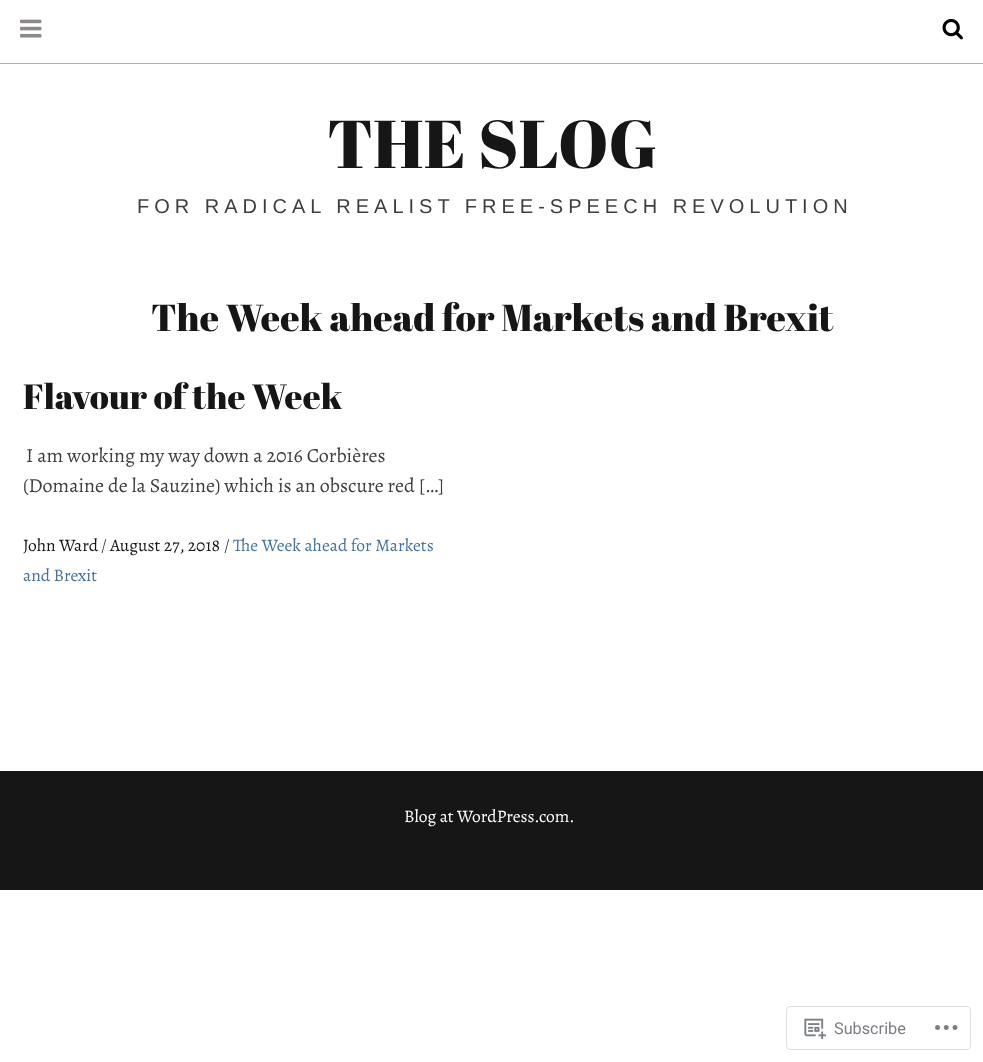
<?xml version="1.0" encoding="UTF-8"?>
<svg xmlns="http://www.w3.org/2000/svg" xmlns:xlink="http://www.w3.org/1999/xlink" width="983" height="1062">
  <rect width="100%" height="100%" fill="#ffffff" />
  <rect y="63" width="983" height="1" fill="#afafaf" />
  <image x="942" y="18" width="21" height="22" xlink:href="image1.png" />
  <image x="20" y="19" width="22" height="19" xlink:href="image2.png" />
  <rect y="771" width="983" height="119" fill="#171617" />
  <rect x="786.5" y="1006.5" width="184" height="43" rx="3.5" fill="none" stroke="#dddddf" />
  <image x="804" y="1018" width="22" height="22" xlink:href="image3.png" />
  <image x="935" y="1025" width="23" height="5" xlink:href="image4.png" />
  <text x="327" y="168" style="font-family: Abril Fatface; font-size: 67.5px; fill: #171617">THE SLOG</text>
  <text x="137" y="213" style="font-family: Liberation Sans; font-size: 20px; letter-spacing: 5px; fill: #3d3e40">FOR RADICAL REALIST FREE-SPEECH REVOLUTION</text>
  <text x="151" y="331" style="font-family: Abril Fatface; font-size: 37.5px; fill: #171617">The Week ahead for Markets and Brexit</text>
  <text x="23" y="409" style="font-family: Abril Fatface; font-size: 35px; fill: #171617">Flavour of the Week</text>
  <text x="26" y="462" style="font-family: Alegreya; font-size: 20px; fill: #3d3e40">I am working my way down a 2016 Corbières</text>
  <text x="23" y="492" style="font-family: Alegreya; font-size: 20px; fill: #3d3e40">(Domaine de la Sauzine) which is an obscure red […]</text>
  <text x="23" y="551" style="font-family: Alegreya; font-size: 17.5px; fill: #171617">John Ward</text>
  <text x="101" y="551" style="font-family: Alegreya; font-size: 17.5px; fill: #3d3e40">/</text>
  <text x="110" y="551" style="font-family: Alegreya; font-size: 17.5px; fill: #171617">August 27, 2018</text>
  <text x="224" y="551" style="font-family: Alegreya; font-size: 17.5px; fill: #3d3e40">/</text>
  <text x="233" y="551" style="font-family: Alegreya; font-size: 17.5px; fill: #4472a0">The Week ahead for Markets</text>
  <text x="23" y="581" style="font-family: Alegreya; font-size: 17.5px; fill: #4472a0">and Brexit</text>
  <text x="404" y="822" style="font-family: Alegreya; font-size: 17.5px; fill: #ffffff">Blog at WordPress.com.</text>
  <text x="834" y="1034" style="font-family: Roboto; font-size: 16.25px; fill: #7b7f85">Subscribe</text>
</svg>
